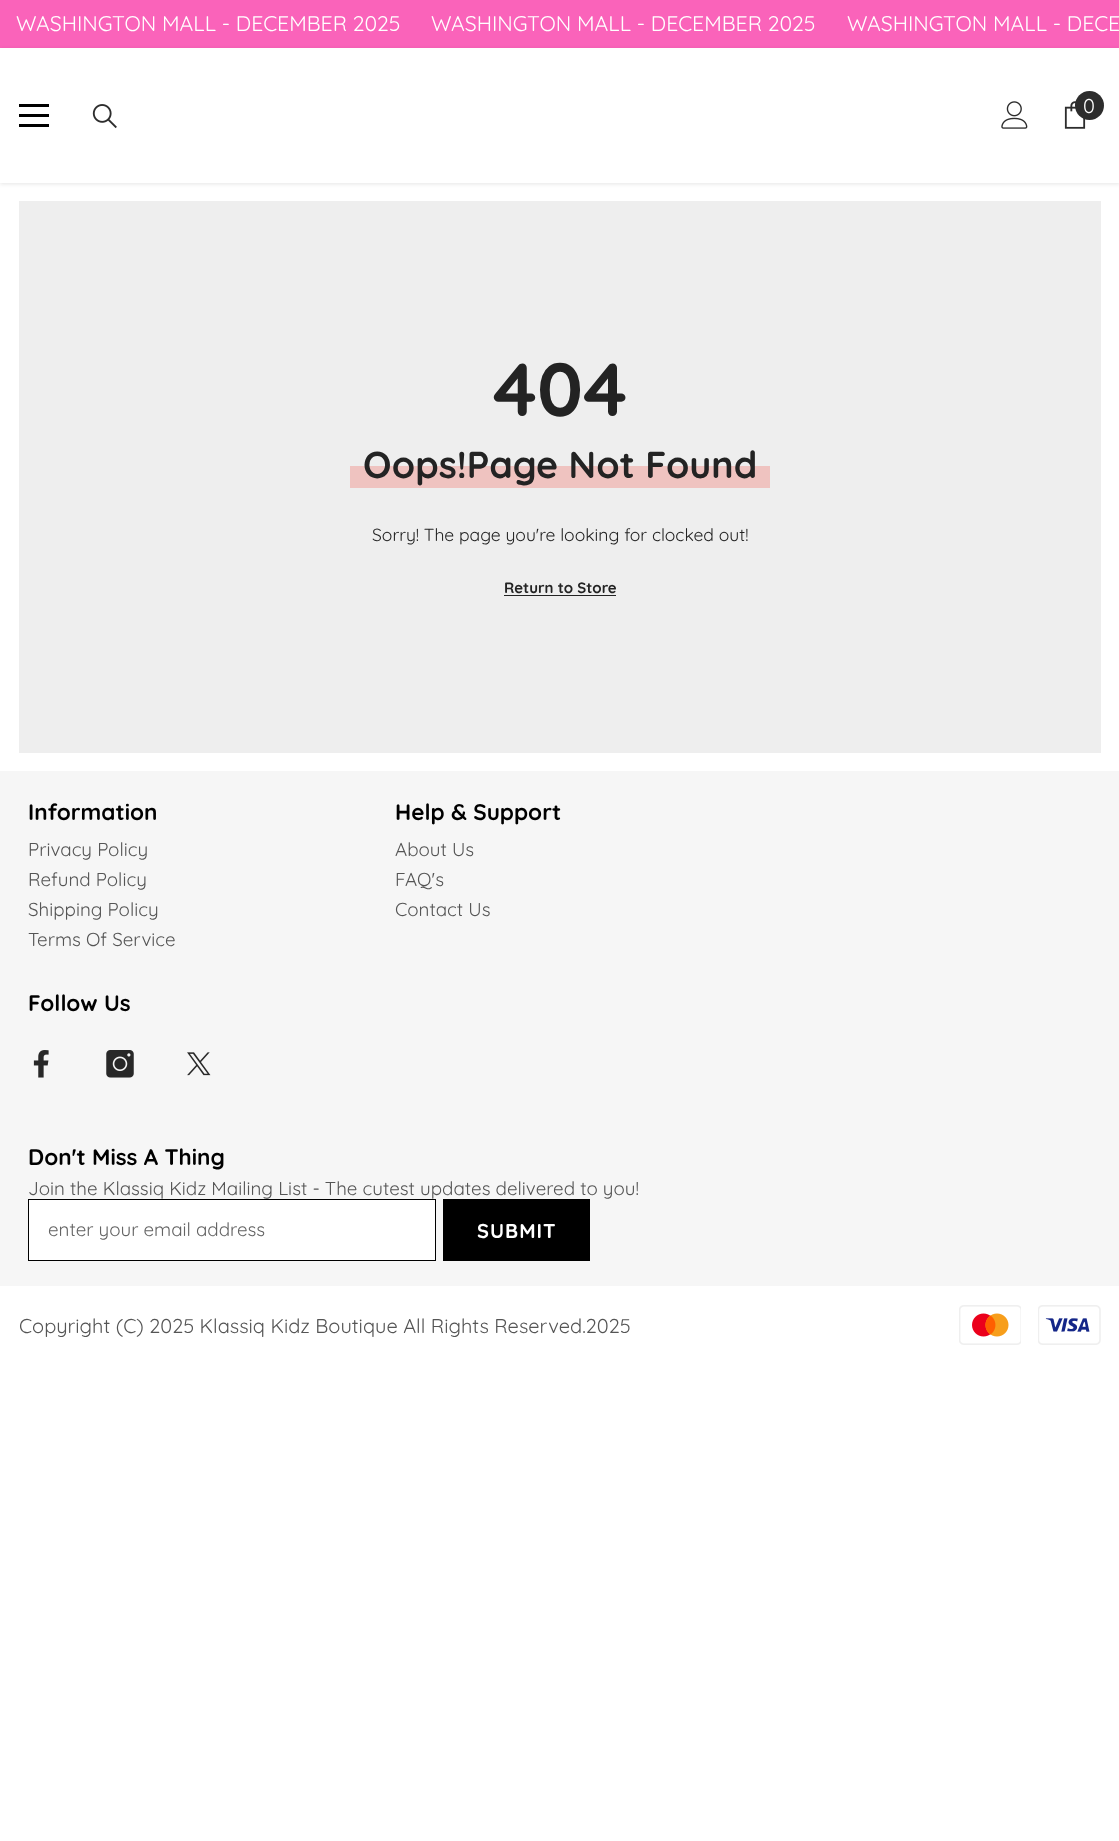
<?xml version="1.0" encoding="UTF-8"?>
<svg xmlns="http://www.w3.org/2000/svg" xmlns:xlink="http://www.w3.org/1999/xlink" width="1119" height="1841">
  <rect width="100%" height="100%" fill="#ffffff" />
  <rect width="1119" height="48" fill="#fa63ba" />
  <rect y="49" width="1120" height="135" fill="#000000" fill-opacity="0.1" filter="blur(2px)" />
  <rect y="48" width="1119" height="135" fill="#ffffff" />
  <rect x="19" y="114" width="30" height="3" fill="#000000" />
  <rect x="19" y="104" width="30" height="3" fill="#000000" />
  <rect x="19" y="124" width="30" height="3" fill="#000000" />
  <image x="92" y="104" width="25" height="25" xlink:href="image1.png" />
  <image x="1001" y="101" width="27" height="28" xlink:href="image2.png" />
  <image x="1064" y="101" width="22" height="28" xlink:href="image3.png" />
  <circle cx="1089.5" cy="105.5" r="14.5" fill="#2d2d2d" />
  <rect x="19" y="201" width="1082" height="552" fill="#eeeeee" />
  <rect x="350" y="466" width="420" height="22" fill="#efc3c0" />
  <rect x="504" y="595" width="112" height="1" fill="#232323" />
  <rect y="771" width="1119" height="515" fill="#f6f6f6" />
  <image x="33" y="1050" width="16" height="28" xlink:href="image4.png" />
  <image x="106" y="1050" width="28" height="28" xlink:href="image5.png" />
  <image x="187" y="1052" width="24" height="24" xlink:href="image6.png" />
  <rect x="28.5" y="1199.5" width="407" height="61" fill="#ffffff" stroke="#000000" />
  <rect x="443" y="1199" width="147" height="62" fill="#000000" />
  <image x="959" y="1305" width="62" height="40" xlink:href="image7.png" />
  <image x="1038" y="1305" width="63" height="40" xlink:href="image8.png" />
  <text x="16" y="31" style="font-family: Quicksand; font-size: 21.25px; fill: #ffffff">WASHINGTON MALL - DECEMBER 2025</text>
  <text x="431" y="31" style="font-family: Quicksand; font-size: 21.25px; fill: #ffffff">WASHINGTON MALL - DECEMBER 2025</text>
  <text x="847" y="31" style="font-family: Quicksand; font-size: 21.25px; fill: #ffffff">WASHINGTON MALL - DECE</text>
  <text x="1083" y="113" style="font-family: Quicksand; font-size: 20px; fill: #ffffff">0</text>
  <text x="493" y="416" style="font-family: Quicksand; font-size: 75px; font-weight: bold; fill: #232323">404</text>
  <text x="363" y="478" style="font-family: Quicksand; font-size: 37.5px; font-weight: bold; fill: #232323">Oops!Page Not Found</text>
  <text x="372" y="541" style="font-family: Quicksand; font-size: 17.5px; fill: #232323">Sorry! The page you're looking for clocked out!</text>
  <text x="504" y="593" style="font-family: Quicksand; font-size: 15px; font-weight: bold; fill: #232323">Return to Store</text>
  <text x="28" y="820" style="font-family: Quicksand; font-size: 22.5px; font-weight: bold; fill: #000000">Information</text>
  <text x="28" y="856" style="font-family: Quicksand; font-size: 18.75px; fill: #555555">Privacy Policy</text>
  <text x="28" y="886" style="font-family: Quicksand; font-size: 18.75px; fill: #555555">Refund Policy</text>
  <text x="28" y="916" style="font-family: Quicksand; font-size: 18.75px; fill: #555555">Shipping Policy</text>
  <text x="28" y="946" style="font-family: Quicksand; font-size: 18.75px; fill: #555555">Terms Of Service</text>
  <text x="395" y="820" style="font-family: Quicksand; font-size: 22.5px; font-weight: bold; fill: #000000">Help &amp; Support</text>
  <text x="395" y="856" style="font-family: Quicksand; font-size: 18.75px; fill: #555555">About Us</text>
  <text x="395" y="886" style="font-family: Quicksand; font-size: 18.75px; fill: #555555">FAQ's</text>
  <text x="395" y="916" style="font-family: Quicksand; font-size: 18.75px; fill: #555555">Contact Us</text>
  <text x="28" y="1011" style="font-family: Quicksand; font-size: 22.5px; font-weight: bold; fill: #000000">Follow Us</text>
  <text x="28" y="1165" style="font-family: Quicksand; font-size: 22.5px; font-weight: bold; fill: #000000">Don't Miss A Thing</text>
  <text x="28" y="1195" style="font-family: Quicksand; font-size: 18.75px; fill: #555555">Join the Klassiq Kidz Mailing List - The cutest updates delivered to you!</text>
  <text x="48" y="1236" style="font-family: Quicksand; font-size: 18.75px; fill: #646464">enter your email address</text>
  <text x="477" y="1238" style="font-family: Quicksand; font-size: 20px; font-weight: bold; letter-spacing: 1px; fill: #ffffff">SUBMIT</text>
  <text x="19" y="1333" style="font-family: Quicksand; font-size: 20px; fill: #555555">Copyright (C) 2025 Klassiq Kidz Boutique All Rights Reserved.2025</text>
</svg>
